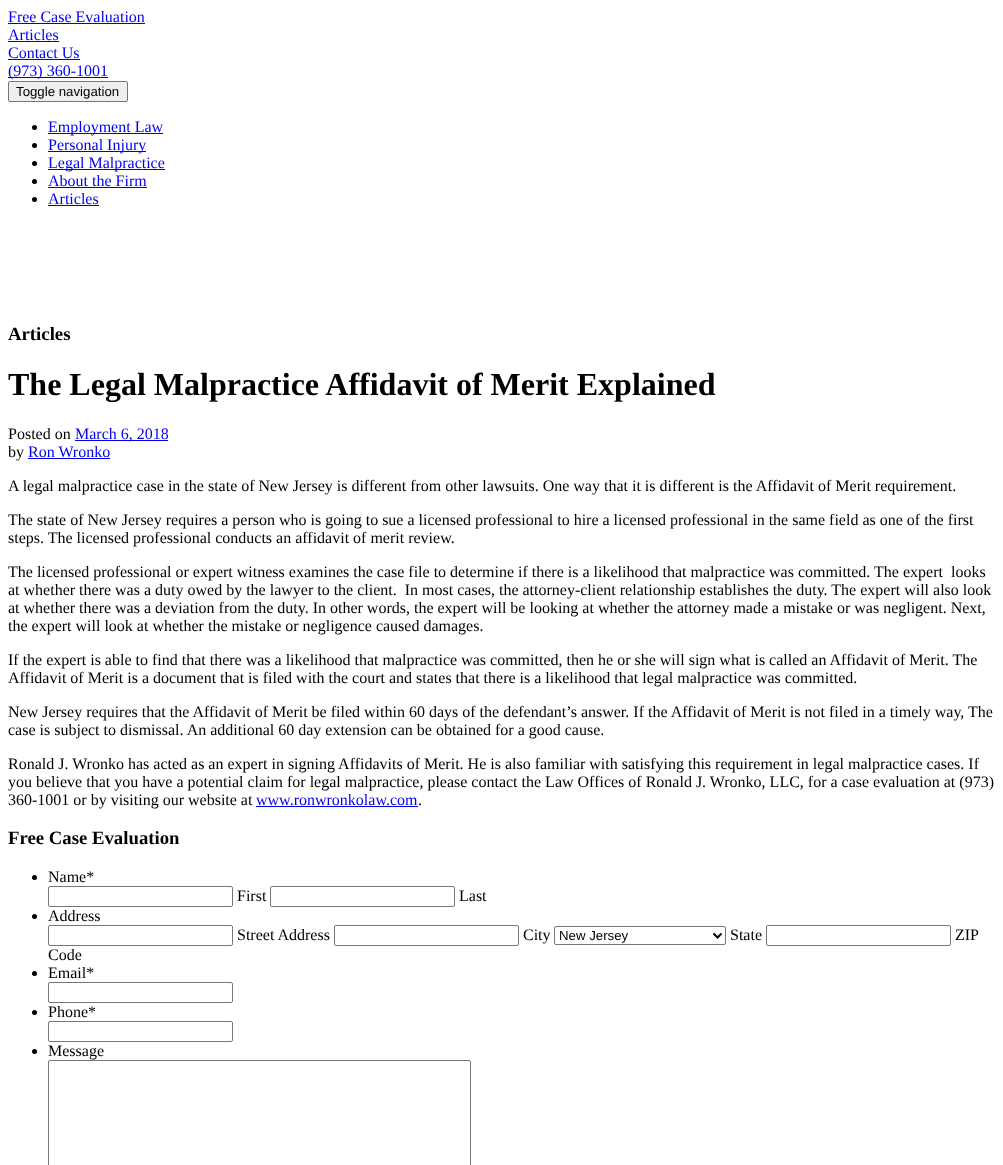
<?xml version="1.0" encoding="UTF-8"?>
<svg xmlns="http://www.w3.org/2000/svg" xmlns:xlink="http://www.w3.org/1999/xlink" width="1003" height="1165">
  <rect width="100%" height="100%" fill="#ffffff" />
  <rect x="8" y="23" width="137" height="1" fill="#0000ee" />
  <rect x="8" y="41" width="51" height="1" fill="#0000ee" />
  <rect x="8" y="59" width="72" height="1" fill="#0000ee" />
  <rect x="8" y="77" width="100" height="1" fill="#0000ee" />
  <rect x="8.5" y="81.5" width="119" height="20" rx="1.5" fill="#efefef" stroke="#767676" />
  <circle cx="34.5" cy="127.5" r="2.5" fill="#000000" />
  <rect x="48" y="133" width="115" height="1" fill="#0000ee" />
  <circle cx="34.5" cy="145.5" r="2.5" fill="#000000" />
  <rect x="48" y="151" width="98" height="1" fill="#0000ee" />
  <circle cx="34.5" cy="163.5" r="2.5" fill="#000000" />
  <rect x="48" y="169" width="117" height="1" fill="#0000ee" />
  <circle cx="34.5" cy="181.5" r="2.5" fill="#000000" />
  <rect x="48" y="187" width="99" height="1" fill="#0000ee" />
  <circle cx="34.5" cy="199.5" r="2.5" fill="#000000" />
  <rect x="48" y="205" width="51" height="1" fill="#0000ee" />
  <rect x="75" y="440" width="93" height="1" fill="#0000ee" />
  <rect x="28" y="458" width="82" height="1" fill="#0000ee" />
  <rect x="256" y="806" width="162" height="1" fill="#0000ee" />
  <circle cx="34.5" cy="877.5" r="2.5" fill="#000000" />
  <rect x="48.5" y="886.5" width="184" height="20" rx="1.5" fill="none" stroke="#767676" />
  <rect x="270.5" y="886.5" width="184" height="20" rx="1.5" fill="none" stroke="#767676" />
  <circle cx="34.5" cy="916.5" r="2.5" fill="#000000" />
  <rect x="48.5" y="925.5" width="184" height="20" rx="1.5" fill="none" stroke="#767676" />
  <rect x="766.5" y="925.5" width="184" height="20" rx="1.5" fill="none" stroke="#767676" />
  <rect x="334.5" y="925.5" width="184" height="20" rx="1.5" fill="none" stroke="#767676" />
  <rect x="554.5" y="926.5" width="171" height="18" rx="1.5" fill="none" stroke="#767676" />
  <path d="M 713.5 933.5 l 4 4 l 4 -4" fill="none" stroke="#000000" stroke-width="2" />
  <circle cx="34.5" cy="973.5" r="2.5" fill="#000000" />
  <rect x="48.5" y="982.5" width="184" height="20" rx="1.5" fill="none" stroke="#767676" />
  <circle cx="34.5" cy="1012.5" r="2.5" fill="#000000" />
  <rect x="48.5" y="1021.5" width="184" height="20" rx="1.5" fill="none" stroke="#767676" />
  <circle cx="34.5" cy="1051.5" r="2.5" fill="#000000" />
  <rect x="48.5" y="1060.5" width="422" height="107" rx="1.5" fill="none" stroke="#767676" />
  <text x="8" y="22" style="font-family: Liberation Serif; font-size: 16px; fill: #0000ee">Free Case Evaluation</text>
  <text x="8" y="40" style="font-family: Liberation Serif; font-size: 16px; fill: #0000ee">Articles</text>
  <text x="8" y="58" style="font-family: Liberation Serif; font-size: 16px; fill: #0000ee">Contact Us</text>
  <text x="8" y="76" style="font-family: Liberation Serif; font-size: 16px; fill: #0000ee">(973) 360-1001</text>
  <text x="16" y="96" style="font-family: Liberation Sans; font-size: 13.25px; fill: #000000">Toggle navigation</text>
  <text x="48" y="132" style="font-family: Liberation Serif; font-size: 16px; fill: #0000ee">Employment Law</text>
  <text x="48" y="150" style="font-family: Liberation Serif; font-size: 16px; fill: #0000ee">Personal Injury</text>
  <text x="48" y="168" style="font-family: Liberation Serif; font-size: 16px; fill: #0000ee">Legal Malpractice</text>
  <text x="48" y="186" style="font-family: Liberation Serif; font-size: 16px; fill: #0000ee">About the Firm</text>
  <text x="48" y="204" style="font-family: Liberation Serif; font-size: 16px; fill: #0000ee">Articles</text>
  <text x="8" y="340" style="font-family: Liberation Serif; font-size: 18.75px; font-weight: bold; fill: #000000">Articles</text>
  <text x="8" y="395" style="font-family: Liberation Serif; font-size: 32px; font-weight: bold; fill: #000000">The Legal Malpractice Affidavit of Merit Explained</text>
  <text x="8" y="439" style="font-family: Liberation Serif; font-size: 16px; fill: #000000">Posted on</text>
  <text x="75" y="439" style="font-family: Liberation Serif; font-size: 16px; fill: #0000ee">March 6, 2018</text>
  <text x="8" y="457" style="font-family: Liberation Serif; font-size: 16px; fill: #000000">by</text>
  <text x="28" y="457" style="font-family: Liberation Serif; font-size: 16px; fill: #0000ee">Ron Wronko</text>
  <text x="8" y="491" style="font-family: Liberation Serif; font-size: 16px; fill: #000000">A legal malpractice case in the state of New Jersey is different from other lawsuits. One way that it is different is the Affidavit of Merit requirement.</text>
  <text x="8" y="525" style="font-family: Liberation Serif; font-size: 16px; fill: #000000">The state of New Jersey requires a person who is going to sue a licensed professional to hire a licensed professional in the same field as one of the first</text>
  <text x="8" y="543" style="font-family: Liberation Serif; font-size: 16px; fill: #000000">steps. The licensed professional conducts an affidavit of merit review.</text>
  <text x="8" y="577" style="font-family: Liberation Serif; font-size: 16px; fill: #000000" xml:space="preserve">The licensed professional or expert witness examines the case file to determine if there is a likelihood that malpractice was committed. The expert  looks</text>
  <text x="8" y="595" style="font-family: Liberation Serif; font-size: 16px; fill: #000000" xml:space="preserve">at whether there was a duty owed by the lawyer to the client.  In most cases, the attorney-client relationship establishes the duty. The expert will also look</text>
  <text x="8" y="613" style="font-family: Liberation Serif; font-size: 16px; fill: #000000">at whether there was a deviation from the duty. In other words, the expert will be looking at whether the attorney made a mistake or was negligent. Next,</text>
  <text x="8" y="631" style="font-family: Liberation Serif; font-size: 16px; fill: #000000">the expert will look at whether the mistake or negligence caused damages.</text>
  <text x="8" y="665" style="font-family: Liberation Serif; font-size: 16px; fill: #000000">If the expert is able to find that there was a likelihood that malpractice was committed, then he or she will sign what is called an Affidavit of Merit. The</text>
  <text x="8" y="683" style="font-family: Liberation Serif; font-size: 16px; fill: #000000">Affidavit of Merit is a document that is filed with the court and states that there is a likelihood that legal malpractice was committed.</text>
  <text x="8" y="717" style="font-family: Liberation Serif; font-size: 16px; fill: #000000">New Jersey requires that the Affidavit of Merit be filed within 60 days of the defendant’s answer. If the Affidavit of Merit is not filed in a timely way, The</text>
  <text x="8" y="735" style="font-family: Liberation Serif; font-size: 16px; fill: #000000">case is subject to dismissal. An additional 60 day extension can be obtained for a good cause.</text>
  <text x="8" y="769" style="font-family: Liberation Serif; font-size: 16px; fill: #000000">Ronald J. Wronko has acted as an expert in signing Affidavits of Merit. He is also familiar with satisfying this requirement in legal malpractice cases. If</text>
  <text x="8" y="787" style="font-family: Liberation Serif; font-size: 16px; fill: #000000">you believe that you have a potential claim for legal malpractice, please contact the Law Offices of Ronald J. Wronko, LLC, for a case evaluation at (973)</text>
  <text x="8" y="805" style="font-family: Liberation Serif; font-size: 16px; fill: #000000">360-1001 or by visiting our website at</text>
  <text x="256" y="805" style="font-family: Liberation Serif; font-size: 16px; fill: #0000ee">www.ronwronkolaw.com</text>
  <text x="418" y="805" style="font-family: Liberation Serif; font-size: 16px; fill: #000000">.</text>
  <text x="8" y="844" style="font-family: Liberation Serif; font-size: 18.75px; font-weight: bold; fill: #000000">Free Case Evaluation</text>
  <text x="48" y="882" style="font-family: Liberation Serif; font-size: 16px; fill: #000000">Name*</text>
  <text x="237" y="901" style="font-family: Liberation Serif; font-size: 16px; fill: #000000">First</text>
  <text x="459" y="901" style="font-family: Liberation Serif; font-size: 16px; fill: #000000">Last</text>
  <text x="48" y="921" style="font-family: Liberation Serif; font-size: 16px; fill: #000000">Address</text>
  <text x="237" y="940" style="font-family: Liberation Serif; font-size: 16px; fill: #000000">Street Address</text>
  <text x="955" y="940" style="font-family: Liberation Serif; font-size: 16px; fill: #000000">ZIP</text>
  <text x="48" y="960" style="font-family: Liberation Serif; font-size: 16px; fill: #000000">Code</text>
  <text x="523" y="940" style="font-family: Liberation Serif; font-size: 16px; fill: #000000">City</text>
  <text x="559" y="940" style="font-family: Liberation Sans; font-size: 13.25px; fill: #000000">New Jersey</text>
  <text x="730" y="940" style="font-family: Liberation Serif; font-size: 16px; fill: #000000">State</text>
  <text x="48" y="978" style="font-family: Liberation Serif; font-size: 16px; fill: #000000">Email*</text>
  <text x="48" y="1017" style="font-family: Liberation Serif; font-size: 16px; fill: #000000">Phone*</text>
  <text x="48" y="1056" style="font-family: Liberation Serif; font-size: 16px; fill: #000000">Message</text>
</svg>
